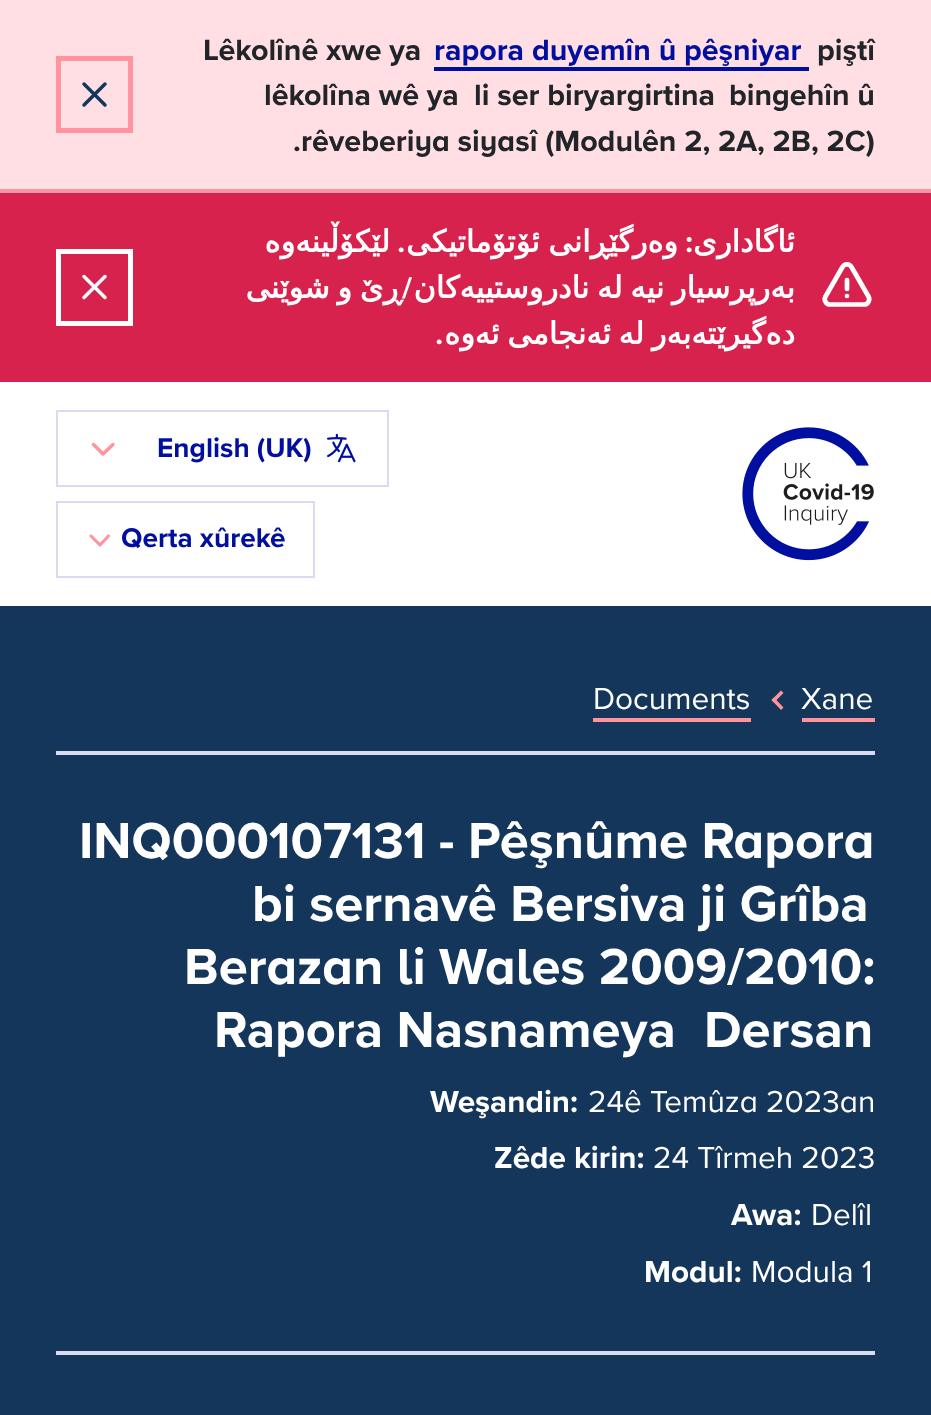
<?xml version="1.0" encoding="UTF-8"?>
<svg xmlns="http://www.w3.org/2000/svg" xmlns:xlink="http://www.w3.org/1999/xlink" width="931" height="1415">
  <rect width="100%" height="100%" fill="#ffffff" />
  <rect width="931" height="189" fill="#ffdfe3" />
  <rect y="189" width="931" height="4" fill="#ff949f" />
  <rect x="58.5" y="58.5" width="72" height="72" fill="none" stroke="#ff949f" stroke-width="5" />
  <path d="M 84 105 l 21 -21 m -21 0 l 21 21" fill="none" stroke="#15365b" stroke-width="3.5" stroke-linecap="round" stroke-linejoin="round" />
  <rect x="434" y="67" width="375" height="4" fill="#000f9f" />
  <rect y="193" width="931" height="189" fill="#d8224e" />
  <rect x="58.5" y="251.5" width="72" height="72" fill="none" stroke="#ffffff" stroke-width="5" />
  <path d="M 84 297.5 l 21 -21 m -21 0 l 21 21" fill="none" stroke="#ffffff" stroke-width="3.5" stroke-linecap="round" stroke-linejoin="round" />
  <path d="M 847 280 v 9 m -21.5 7.5 c -2 3.5 0.5 8 4.5 8 h 34 c 4 0 6.5 -4.5 4.5 -8 l -17 -29.5 c -2 -3.5 -7 -3.5 -9 0 z m 21.5 -0.5 h 0 z" fill="none" stroke="#ffffff" stroke-width="4.7" stroke-linecap="round" stroke-linejoin="round" />
  <rect x="57" y="411" width="331" height="75" fill="none" stroke="#d9dbf1" stroke-width="2" />
  <path d="M 113 444.5 l -10 9.5 l -9.5 -9.5" fill="none" stroke="#ff949f" stroke-width="3.5" stroke-linecap="round" stroke-linejoin="round" />
  <image x="327" y="433" width="29" height="30" xlink:href="image1.png" />
  <rect x="57" y="502" width="257" height="75" fill="none" stroke="#d9dbf1" stroke-width="2" />
  <path d="M 108.5 536 l -8.5 9 l -9 -9" fill="none" stroke="#ff949f" stroke-width="3.1" stroke-linecap="round" stroke-linejoin="round" />
  <image x="742" y="427" width="132" height="134" xlink:href="image2.png" />
  <rect y="606" width="931" height="809" fill="#15365b" />
  <rect x="593" y="718" width="158" height="4" fill="#ff949f" />
  <path d="M 781 710 l -9.5 -10 l 2.5 -2.5 l 9.5 10 z" fill="#ff949f" />
  <path d="M 774 702.5 l -2.5 -2.5 l 9.5 -9.5 l 2.5 2.5 z" fill="#ff949f" />
  <rect x="802" y="718" width="73" height="4" fill="#ff949f" />
  <rect x="56" y="751" width="819" height="4" fill="#d9dbf1" />
  <rect x="56" y="1351" width="819" height="4" fill="#d9dbf1" />
  <text x="203" y="60" style="font-family: Proxima Nova; font-size: 30.4px; font-weight: bold; fill: #212529">Lêkolînê xwe ya</text>
  <text x="434" y="60" style="font-family: Proxima Nova; font-size: 30.4px; font-weight: bold; fill: #000f9f">rapora duyemîn û pêşniyar</text>
  <text x="817" y="60" style="font-family: Proxima Nova; font-size: 30.4px; font-weight: bold; fill: #212529">piştî</text>
  <text x="264" y="105" style="font-family: Proxima Nova; font-size: 30.4px; font-weight: bold; fill: #212529">lêkolîna wê ya</text>
  <text x="474" y="105" style="font-family: Proxima Nova; font-size: 30.4px; font-weight: bold; fill: #212529">li ser biryargirtina</text>
  <text x="729" y="105" style="font-family: Proxima Nova; font-size: 30.4px; font-weight: bold; fill: #212529">bingehîn û</text>
  <text x="293" y="151" style="font-family: Proxima Nova; font-size: 30.4px; font-weight: bold; fill: #212529">.</text>
  <text x="301" y="151" style="font-family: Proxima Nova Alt; font-size: 30.4px; font-weight: bold; fill: #212529">rêveberiya siyasî (Modulên 2, 2A, 2B, 2C)</text>
  <text x="390" y="252" style="font-family: DejaVu Sans; font-size: 30.4px; font-weight: bold; direction: rtl; fill: #ffffff">لێکۆڵینەوە</text>
  <text x="405" y="252" style="font-family: Proxima Nova; font-size: 30.4px; font-weight: bold; direction: rtl; fill: #ffffff">.</text>
  <text x="678" y="252" word-spacing="-1" style="font-family: DejaVu Sans; font-size: 30.4px; font-weight: bold; direction: rtl; fill: #ffffff">وەرگێڕانی ئۆتۆماتیکی</text>
  <text x="693" y="252" style="font-family: Proxima Nova; font-size: 30.4px; font-weight: bold; direction: rtl; fill: #ffffff">:</text>
  <text x="795" y="252" style="font-family: DejaVu Sans; font-size: 30.4px; font-weight: bold; direction: rtl; fill: #ffffff">ئاگاداری</text>
  <text x="402" y="298" word-spacing="-2" style="font-family: DejaVu Sans; font-size: 30.4px; font-weight: bold; direction: rtl; fill: #ffffff">ڕێ و شوێنی</text>
  <text x="412" y="298" style="font-family: Proxima Nova; font-size: 30.4px; font-weight: bold; direction: rtl; fill: #ffffff">/</text>
  <text x="795" y="298" word-spacing="-2" style="font-family: DejaVu Sans; font-size: 30.4px; font-weight: bold; direction: rtl; fill: #ffffff">بەرپرسیار نیە لە نادروستییەکان</text>
  <text x="443" y="344" style="font-family: Proxima Nova; font-size: 30.4px; font-weight: bold; direction: rtl; fill: #ffffff">.</text>
  <text x="795" y="344" word-spacing="-2" style="font-family: DejaVu Sans; font-size: 30.4px; font-weight: bold; direction: rtl; fill: #ffffff">دەگیرێتەبەر لە ئەنجامی ئەوە</text>
  <text x="157" y="457" style="font-family: Proxima Nova; font-size: 28px; font-weight: bold; fill: #000f9f">English (UK)</text>
  <text x="121" y="547" style="font-family: Proxima Nova; font-size: 28px; font-weight: bold; fill: #000f9f">Qerta xûrekê</text>
  <text x="593" y="709" style="font-family: Proxima Nova; font-size: 31.5px; fill: #ffffff">Documents</text>
  <text x="801" y="709" style="font-family: Proxima Nova; font-size: 31.5px; fill: #ffffff">Xane</text>
  <text x="79" y="858" style="font-family: Proxima Nova Alt; font-size: 52.4px; font-weight: bold; fill: #ffffff">INQ000107131 - Pêşnûme Rapora</text>
  <text x="252" y="921" style="font-family: Proxima Nova; font-size: 52.4px; font-weight: bold; fill: #ffffff">bi sernavê Bersiva ji Grîba</text>
  <text x="184" y="984" style="font-family: Proxima Nova Alt; font-size: 52.4px; font-weight: bold; fill: #ffffff">Berazan li Wales 2009/2010:</text>
  <text x="214" y="1047" style="font-family: Proxima Nova; font-size: 52.4px; font-weight: bold; fill: #ffffff">Rapora Nasnameya</text>
  <text x="704" y="1047" style="font-family: Proxima Nova; font-size: 52.4px; font-weight: bold; fill: #ffffff">Dersan</text>
  <text x="430" y="1112" style="font-family: Proxima Nova; font-size: 31.5px; font-weight: bold; fill: #ffffff">Weşandin:</text>
  <text x="588" y="1112" style="font-family: Proxima Nova Alt; font-size: 31.5px; fill: #ffffff">24ê Temûza 2023an</text>
  <text x="494" y="1168" style="font-family: Proxima Nova; font-size: 31.5px; font-weight: bold; fill: #ffffff">Zêde kirin:</text>
  <text x="653" y="1168" style="font-family: Proxima Nova; font-size: 31.5px; fill: #ffffff">24 Tîrmeh 2023</text>
  <text x="731" y="1225" style="font-family: Proxima Nova; font-size: 31.5px; font-weight: bold; fill: #ffffff">Awa:</text>
  <text x="811" y="1225" style="font-family: Proxima Nova; font-size: 31.5px; fill: #ffffff">Delîl</text>
  <text x="644" y="1282" style="font-family: Proxima Nova; font-size: 31.5px; font-weight: bold; fill: #ffffff">Modul:</text>
  <text x="751" y="1282" style="font-family: Proxima Nova; font-size: 31.5px; fill: #ffffff">Modula 1</text>
</svg>
